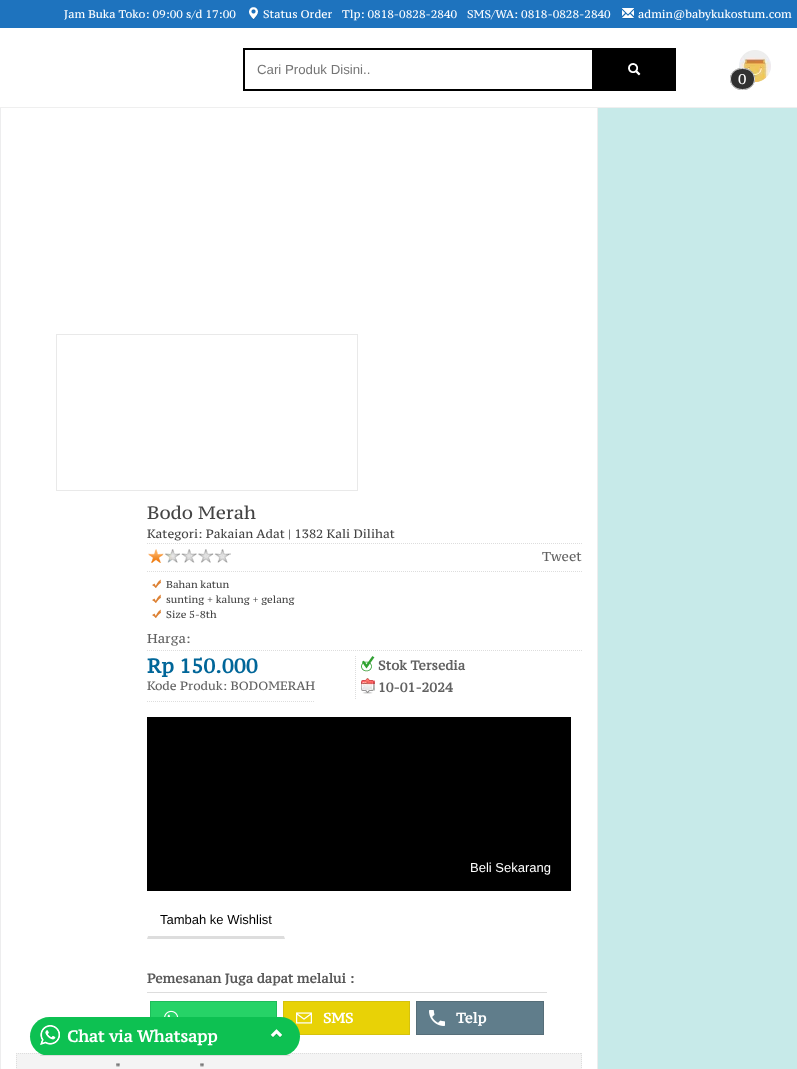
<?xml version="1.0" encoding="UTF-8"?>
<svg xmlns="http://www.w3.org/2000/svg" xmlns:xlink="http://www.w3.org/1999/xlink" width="797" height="1069">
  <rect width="100%" height="100%" fill="#c7eae9" />
  <path d="M 598 -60 v 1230 l -1 -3 v -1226 z" fill="#ededee" />
  <path d="M 0 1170 v -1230 l 1 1 v 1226 z" fill="#ededee" />
  <rect y="28" width="797" height="79" fill="#ffffff" />
  <rect y="107" width="797" height="1" fill="#efefef" />
  <rect width="797" height="28" fill="#1e73be" />
  <image x="249" y="7" width="9" height="13" xlink:href="image1.png" />
  <image x="622" y="8" width="12" height="11" xlink:href="image2.png" />
  <rect x="244" y="49" width="431" height="41" fill="none" stroke="#000000" stroke-width="2" />
  <rect x="592" y="50" width="82" height="39" fill="#000000" />
  <image x="628" y="63" width="13" height="13" xlink:href="image3.png" />
  <image x="739" y="50" width="32" height="32" xlink:href="image4.png" />
  <ellipse cx="742.5" cy="79" rx="12.5" ry="11" fill="#313131" />
  <path d="M 742.5 68.5 c 16 0 16 21 0 21 c -16 0 -16 -21 0 -21 z" fill="none" stroke="#dddddd" />
  <rect x="1" y="108" width="596" height="961" fill="#ffffff" />
  <rect x="56.5" y="334.5" width="301" height="156" fill="none" stroke="#e9e9e9" />
  <path d="M 147 543.5 h 435" fill="none" stroke="#dddddd" stroke-dasharray="1 1" />
  <path d="M 147 571.5 h 435" fill="none" stroke="#dddddd" stroke-dasharray="1 1" />
  <image x="148" y="549" width="83" height="14" xlink:href="image5.png" />
  <image x="152" y="579" width="9" height="9" xlink:href="image6.png" />
  <image x="152" y="594" width="9" height="9" xlink:href="image6.png" />
  <image x="152" y="609" width="9" height="9" xlink:href="image6.png" />
  <path d="M 147 650.5 h 435" fill="none" stroke="#dddddd" stroke-dasharray="1 1" />
  <path d="M 355.5 656 v 43" fill="none" stroke="#dddddd" stroke-dasharray="1 1" />
  <image x="361" y="656" width="14" height="16" xlink:href="image7.png" />
  <image x="361" y="678" width="14" height="16" xlink:href="image8.png" />
  <path d="M 147 701.5 h 168" fill="none" stroke="#dddddd" stroke-dasharray="1 1" />
  <rect x="148" y="718" width="422" height="170" fill="#000000" />
  <rect x="147" y="717" width="424" height="1" fill="#000000" />
  <rect x="570" y="717" width="1" height="174" fill="#000000" />
  <rect x="147" y="888" width="424" height="3" fill="#000000" />
  <rect x="147" y="717" width="1" height="174" fill="#000000" />
  <path d="M 285 939 h -138 l 1 -3 h 136 z" fill="#dddddd" />
  <rect x="147" y="992" width="400" height="1" fill="#dddddd" />
  <rect x="151" y="1002" width="125" height="15" fill="#26d367" />
  <rect x="150.5" y="1001.5" width="126" height="33" fill="none" stroke="#1fbc5a" />
  <image x="164" y="1010" width="15" height="7" xlink:href="image9.png" />
  <rect x="283.5" y="1001.5" width="126" height="33" fill="#e8d206" stroke="#d5c20d" />
  <image x="296" y="1012" width="16" height="12" xlink:href="image10.png" />
  <rect x="416.5" y="1001.5" width="127" height="33" fill="#607d8b" stroke="#566e79" />
  <image x="429" y="1010" width="16" height="16" xlink:href="image11.png" />
  <rect x="16" y="1053" width="566" height="16" fill="#f4f4f4" />
  <path d="M 16 1053.5 h 566" fill="none" stroke="#dddddd" stroke-dasharray="1 1" />
  <path d="M 581.5 1053 v 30" fill="none" stroke="#dddddd" stroke-dasharray="1 1" />
  <path d="M 16.5 1053 v 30" fill="none" stroke="#dddddd" stroke-dasharray="1 1" />
  <rect x="30" y="1017" width="270" height="39" rx="19.5" fill="#0dc152" />
  <rect x="40" y="1055" width="250" height="1" fill="#dddddd" />
  <image x="40" y="1025" width="20" height="20" xlink:href="image12.png" />
  <image x="270" y="1029" width="12" height="9" xlink:href="image13.png" />
  <text x="64" y="18" style="font-family: PT Serif Caption; font-size: 11px; fill: #ffffff">Jam Buka Toko: 09:00 s/d 17:00</text>
  <text x="263" y="18" style="font-family: PT Serif Caption; font-size: 11px; fill: #ffffff">Status Order</text>
  <text x="342" y="18" style="font-family: PT Serif Caption; font-size: 11px; fill: #ffffff">Tlp: 0818-0828-2840</text>
  <text x="467" y="18" style="font-family: PT Serif Caption; font-size: 11px; fill: #ffffff">SMS/WA: 0818-0828-2840</text>
  <text x="638" y="18" style="font-family: PT Serif Caption; font-size: 11px; fill: #ffffff">admin@babykukostum.com</text>
  <text x="257" y="74" style="font-family: Liberation Sans; font-size: 13.25px; fill: #757575">Cari Produk Disini..</text>
  <text x="738" y="84" style="font-family: PT Serif Caption; font-size: 14px; fill: #ffffff">0</text>
  <text x="147" y="519" style="font-family: PT Serif Caption; font-size: 18px; fill: #444444">Bodo Merah</text>
  <text x="147" y="538" style="font-family: PT Serif Caption; font-size: 12px; fill: #444444">Kategori: Pakaian Adat | 1382 Kali Dilihat</text>
  <text x="542" y="561" style="font-family: PT Serif Caption; font-size: 13px; fill: #616161">Tweet</text>
  <text x="166" y="588" style="font-family: PT Serif Caption; font-size: 10px; fill: #444444">Bahan katun</text>
  <text x="166" y="603" style="font-family: PT Serif Caption; font-size: 10px; fill: #444444">sunting + kalung + gelang</text>
  <text x="166" y="618" style="font-family: PT Serif Caption; font-size: 10px; fill: #444444">Size 5-8th</text>
  <text x="147" y="643" style="font-family: PT Serif Caption; font-size: 13px; fill: #616161">Harga:</text>
  <text x="147" y="673" style="font-family: PT Serif Caption; font-size: 20px; font-weight: bold; fill: #006699">Rp 150.000</text>
  <text x="378" y="670" style="font-family: PT Serif Caption; font-size: 13px; font-weight: bold; fill: #616161">Stok Tersedia</text>
  <text x="378" y="692" style="font-family: PT Serif Caption; font-size: 13px; font-weight: bold; fill: #616161">10-01-2024</text>
  <text x="147" y="690" style="font-family: PT Serif Caption; font-size: 12px; fill: #616161">Kode Produk: BODOMERAH</text>
  <text x="470" y="872" style="font-family: Liberation Sans; font-size: 13px; fill: #ffffff">Beli Sekarang</text>
  <text x="160" y="924" style="font-family: Liberation Sans; font-size: 13px; fill: #000000">Tambah ke Wishlist</text>
  <text x="147" y="983" style="font-family: PT Serif Caption; font-size: 13px; font-weight: bold; fill: #585858">Pemesanan Juga dapat melalui :</text>
  <text x="323" y="1023" style="font-family: PT Serif Caption; font-size: 14px; font-weight: bold; fill: #ffffff">SMS</text>
  <text x="456" y="1023" style="font-family: PT Serif Caption; font-size: 14px; font-weight: bold; fill: #ffffff">Telp</text>
  <text x="115" y="1073" style="font-family: PT Serif Caption; font-size: 13px; font-weight: bold; fill: #616161">"</text>
  <text x="199" y="1073" style="font-family: PT Serif Caption; font-size: 13px; font-weight: bold; fill: #616161">"</text>
  <text x="67" y="1042" style="font-family: PT Serif Caption; font-size: 16px; font-weight: bold; fill: #ffffff">Chat via Whatsapp</text>
</svg>
